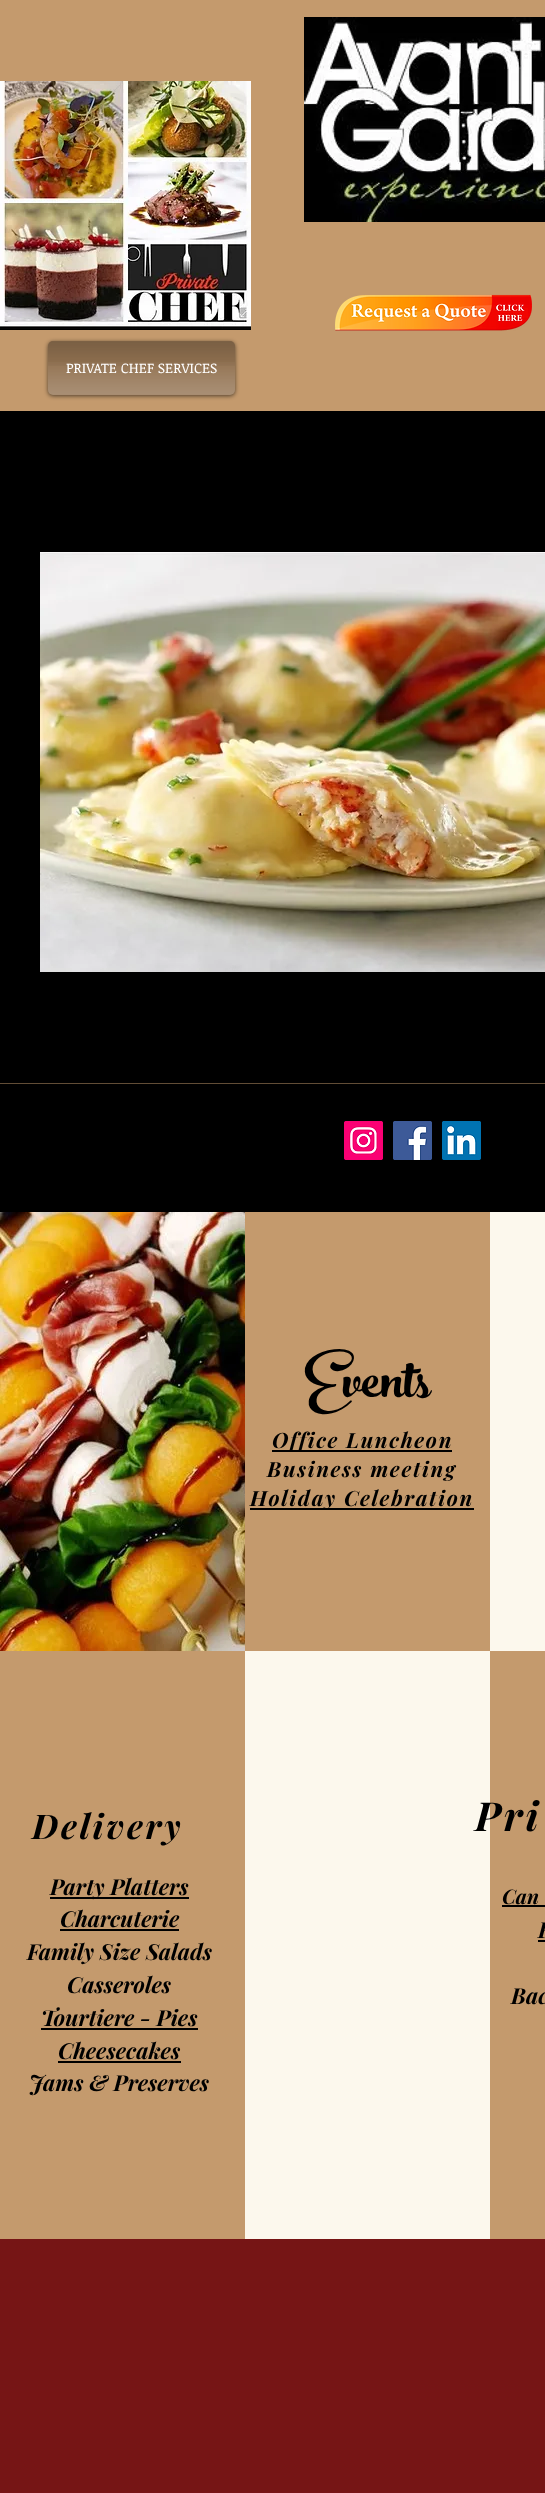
<?xml version="1.0" encoding="UTF-8"?>
<svg xmlns="http://www.w3.org/2000/svg" xmlns:xlink="http://www.w3.org/1999/xlink" width="545" height="2493">
  <rect width="100%" height="100%" fill="#761515" />
  <rect width="545" height="411" fill="#c49a6d" />
  <image x="0" y="81" width="251" height="249" xlink:href="image1.png" />
  <image x="304" y="17" width="241" height="205" xlink:href="image2.png" />
  <image x="335" y="294" width="197" height="37" xlink:href="image3.png" />
  <rect x="48" y="342" width="187" height="54" rx="5" fill="#000000" fill-opacity="0.6" filter="blur(2px)" />
  <rect x="48" y="341" width="187" height="54" rx="5" fill="#937352" />
  <image x="48" y="341" width="187" height="25" xlink:href="image4.png" />
  <image x="48" y="362" width="187" height="33" xlink:href="image5.png" />
  <rect y="411" width="545" height="672" fill="#000000" />
  <image x="40" y="552" width="505" height="420" xlink:href="image6.png" />
  <rect y="1084" width="545" height="128" fill="#000000" />
  <rect y="1083" width="545" height="1" fill="#624d36" />
  <image x="344" y="1121" width="39" height="39" xlink:href="image7.png" />
  <image x="393" y="1121" width="39" height="39" xlink:href="image8.png" />
  <image x="442" y="1121" width="39" height="39" xlink:href="image9.png" />
  <image x="0" y="1212" width="245" height="439" xlink:href="image10.png" />
  <rect x="245" y="1212" width="245" height="439" fill="#c49a6d" />
  <rect x="272" y="1450" width="180" height="2" fill="#000000" />
  <rect x="250" y="1508" width="224" height="2" fill="#000000" />
  <rect x="490" y="1212" width="55" height="439" fill="#fcf8ed" />
  <rect y="1651" width="245" height="588" fill="#c49a6d" />
  <rect x="50" y="1897" width="139" height="2" fill="#000000" />
  <rect x="60" y="1929" width="119" height="2" fill="#000000" />
  <rect x="41" y="2028" width="157" height="2" fill="#000000" />
  <rect x="58" y="2061" width="123" height="2" fill="#000000" />
  <rect x="245" y="1651" width="245" height="588" fill="#fcf8ed" />
  <rect x="490" y="1651" width="55" height="588" fill="#c49a6d" />
  <rect x="502" y="1905" width="43" height="2" fill="#000000" />
  <rect x="538" y="1940" width="7" height="2" fill="#000000" />
  <text x="66" y="373" style="font-family: Noticia Text; font-size: 14px; fill: #ffffff">PRIVATE CHEF SERVICES</text>
  <text x="305" y="1397" style="font-family: 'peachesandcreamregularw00'; font-size: 80px; fill: #000000">Events</text>
  <text x="272" y="1448" style="font-family: Playfair Display; font-size: 21px; font-weight: bold; font-style: italic; letter-spacing: 1.7px; fill: #000000">Office Luncheon</text>
  <text x="267" y="1477" style="font-family: Playfair Display; font-size: 21px; font-weight: bold; font-style: italic; letter-spacing: 1.7px; fill: #000000">Business meeting</text>
  <text x="250" y="1506" style="font-family: Playfair Display; font-size: 21px; font-weight: bold; font-style: italic; letter-spacing: 1.7px; fill: #000000">Holiday Celebration</text>
  <text x="32" y="1839" style="font-family: Playfair Display; font-size: 34px; font-weight: bold; font-style: italic; letter-spacing: 2.75px; fill: #000000">Delivery</text>
  <text x="50" y="1895" style="font-family: Playfair Display; font-size: 22px; font-weight: bold; font-style: italic; fill: #000000">Party Platters</text>
  <text x="60" y="1927" style="font-family: Playfair Display; font-size: 22px; font-weight: bold; font-style: italic; fill: #000000">Charcuterie</text>
  <text x="27" y="1960" style="font-family: Playfair Display; font-size: 22px; font-weight: bold; font-style: italic; fill: #000000">Family Size Salads</text>
  <text x="67" y="1993" style="font-family: Playfair Display; font-size: 22px; font-weight: bold; font-style: italic; fill: #000000">Casseroles</text>
  <text x="41" y="2026" style="font-family: Playfair Display; font-size: 22px; font-weight: bold; font-style: italic; fill: #000000">Tourtiere - Pies</text>
  <text x="58" y="2059" style="font-family: Playfair Display; font-size: 22px; font-weight: bold; font-style: italic; fill: #000000">Cheesecakes</text>
  <text x="29" y="2091" style="font-family: Playfair Display; font-size: 22px; font-weight: bold; font-style: italic; fill: #000000">Jams &amp; Preserves</text>
  <text x="475" y="1831" style="font-family: Playfair Display; font-size: 40px; font-weight: bold; font-style: italic; letter-spacing: 3px; fill: #000000">Pri</text>
  <text x="502" y="1904" style="font-family: Playfair Display; font-size: 20px; font-weight: bold; font-style: italic; fill: #000000">Can</text>
  <text x="538" y="1938" style="font-family: Playfair Display; font-size: 22px; font-weight: bold; font-style: italic; fill: #000000">F</text>
  <text x="511" y="2004" style="font-family: Playfair Display; font-size: 22px; font-weight: bold; font-style: italic; fill: #000000">Bac</text>
</svg>
